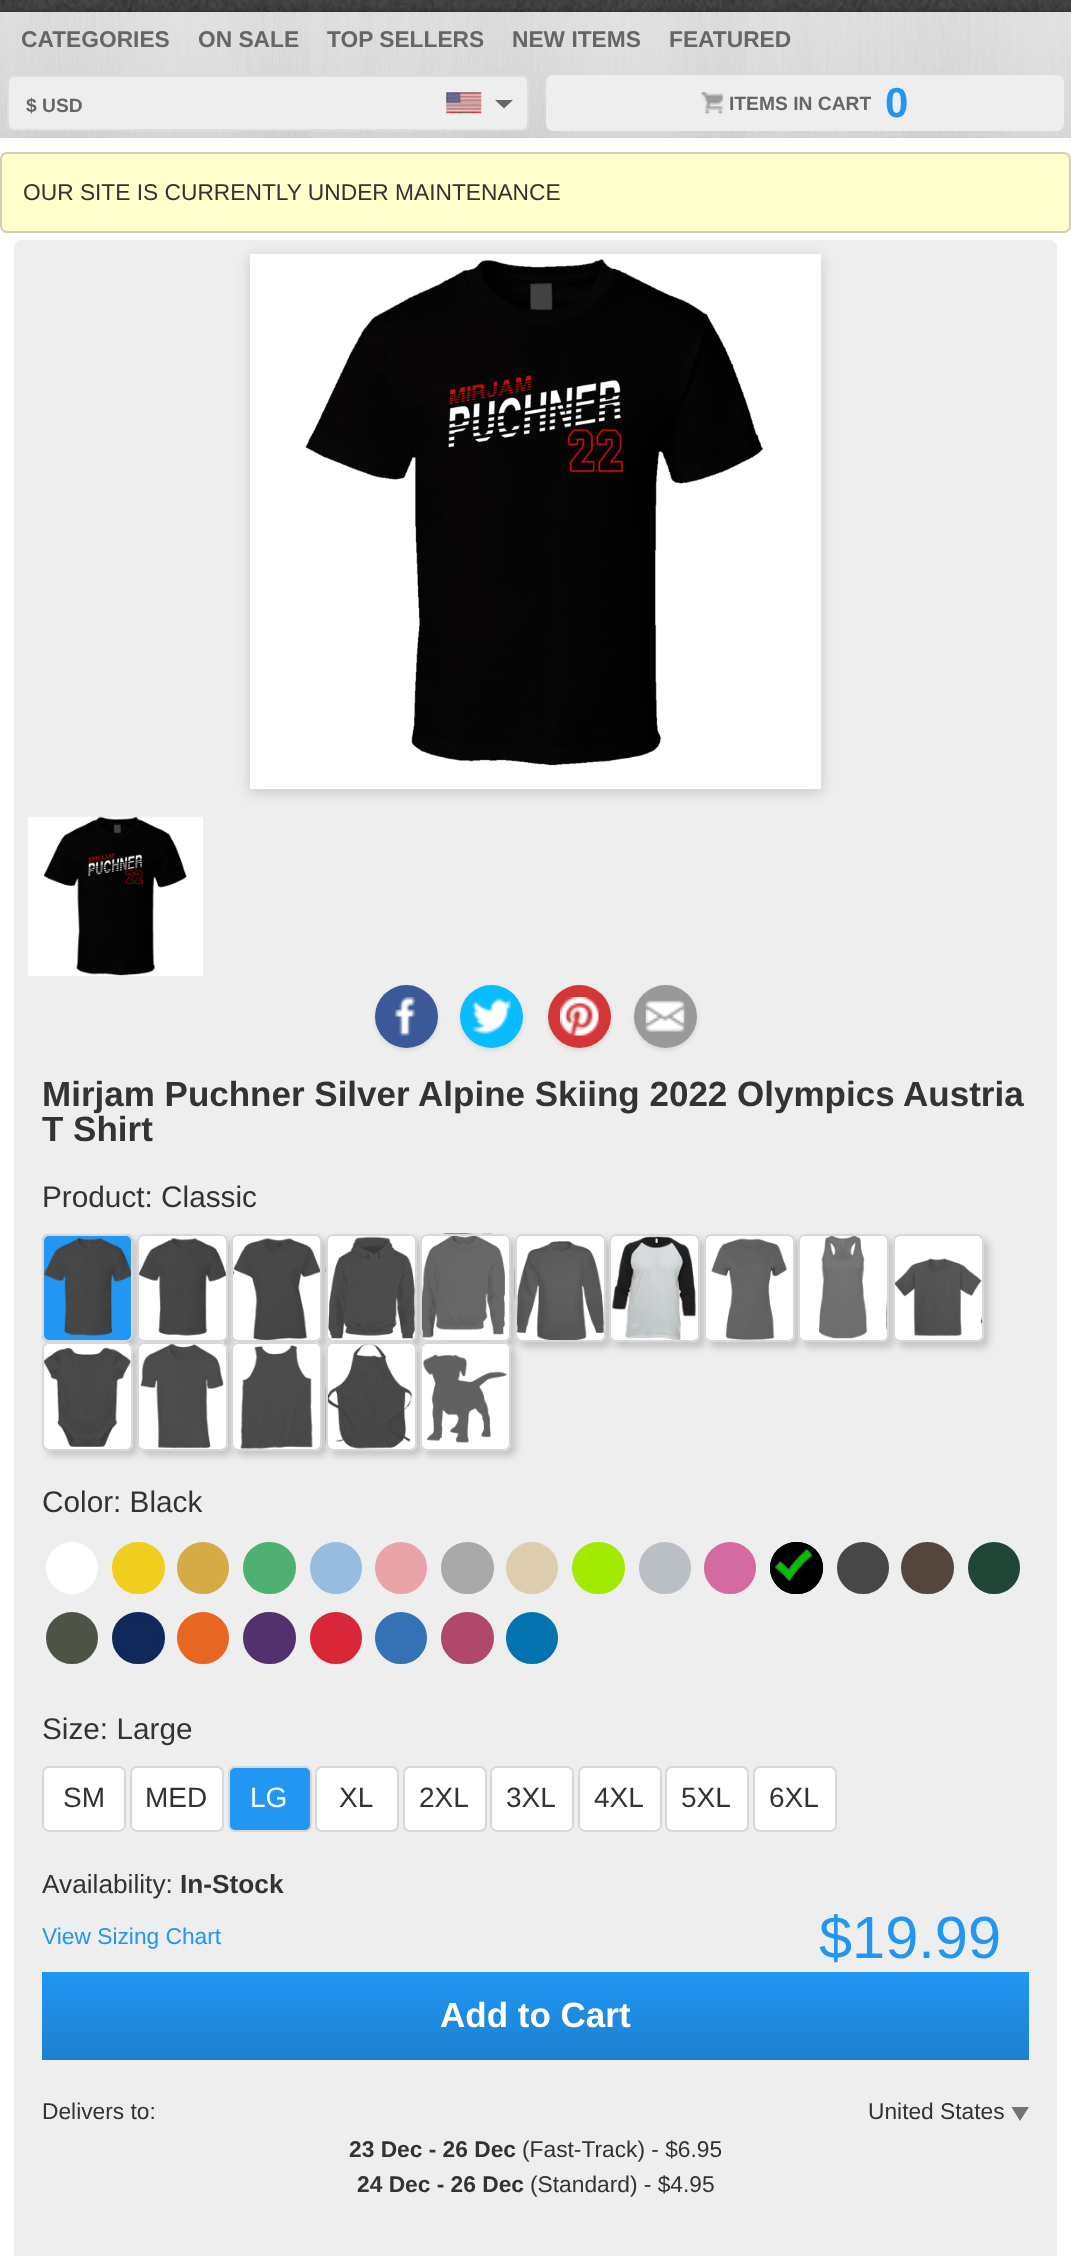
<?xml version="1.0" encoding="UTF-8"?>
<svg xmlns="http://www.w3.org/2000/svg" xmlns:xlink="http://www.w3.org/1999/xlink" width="1071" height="2256">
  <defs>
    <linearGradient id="g1" gradientUnits="userSpaceOnUse" x1="536" y1="1972" x2="536" y2="2060"><stop offset="0" stop-color="#2196f3" /><stop offset="1" stop-color="#1c80cf" /></linearGradient>
  </defs>
  <rect width="100%" height="100%" fill="#ffffff" />
  <image x="0" y="137" width="1071" height="1" xlink:href="image1.png" />
  <image x="0" y="0" width="1071" height="12" xlink:href="image2.png" />
  <rect y="12" width="1071" height="126" fill="#000000" fill-opacity="0.35" filter="blur(3.5px)" />
  <image x="0" y="12" width="1071" height="126" xlink:href="image3.png" />
  <rect x="8" y="76" width="520" height="54" rx="6" fill="#eeeeee" stroke="#dddddd" stroke-width="2" />
  <image x="446" y="92" width="36" height="22" xlink:href="image4.png" />
  <path d="M 495 100 h 18 l -9 8.5 z" fill="#666666" />
  <rect x="546" y="75" width="518" height="56" rx="7" fill="#eeeeee" />
  <image x="701" y="92" width="22" height="22" xlink:href="image5.png" />
  <rect y="138" width="1071" height="7" fill="#ffffff" />
  <rect x="1" y="153" width="1069" height="79" rx="6" fill="#ffffcc" stroke="#cfcfb3" stroke-width="2" />
  <rect x="14" y="240" width="1043" height="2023" rx="7" fill="#eeeeee" />
  <rect x="250" y="257" width="571" height="536" fill="#000000" fill-opacity="0.15" filter="blur(7px)" />
  <rect x="250" y="254" width="571" height="535" fill="#ffffff" />
  <image x="305" y="259" width="458" height="507" xlink:href="image6.png" />
  <image x="28" y="816" width="175" height="160" xlink:href="image7.png" />
  <rect x="375" y="987" width="63" height="63" rx="31.5" fill="#000000" fill-opacity="0.1" filter="blur(2px)" />
  <circle cx="406.5" cy="1016.5" r="31.5" fill="#3b5997" />
  <image x="394" y="997" width="22" height="39" xlink:href="image8.png" />
  <rect x="460" y="987" width="63" height="63" rx="31.5" fill="#000000" fill-opacity="0.1" filter="blur(2px)" />
  <circle cx="491.5" cy="1016.5" r="31.5" fill="#09bbff" />
  <image x="472" y="998" width="39" height="36" xlink:href="image9.png" />
  <rect x="548" y="987" width="63" height="63" rx="31.5" fill="#000000" fill-opacity="0.1" filter="blur(2px)" />
  <circle cx="579.5" cy="1016.5" r="31.5" fill="#d43638" />
  <image x="560" y="997" width="39" height="39" xlink:href="image10.png" />
  <rect x="634" y="987" width="63" height="63" rx="31.5" fill="#000000" fill-opacity="0.1" filter="blur(2px)" />
  <circle cx="665.5" cy="1016.5" r="31.5" fill="#999999" />
  <image x="645" y="1000" width="40" height="32" xlink:href="image11.png" />
  <rect x="47" y="1239" width="91" height="109" rx="7" fill="#c5c5c5" filter="blur(3.5px)" />
  <rect x="42" y="1234" width="91" height="108" rx="7" fill="#2196f3" />
  <image x="44" y="1238" width="87" height="98" xlink:href="image12.png" />
  <rect x="43" y="1235" width="89" height="106" rx="6" fill="none" stroke="#d8d8d8" stroke-width="2" />
  <rect x="142" y="1239" width="91" height="109" rx="7" fill="#c5c5c5" filter="blur(3.5px)" />
  <rect x="137" y="1234" width="91" height="108" rx="7" fill="#ffffff" />
  <image x="139" y="1238" width="87" height="98" xlink:href="image13.png" />
  <rect x="138" y="1235" width="89" height="106" rx="6" fill="none" stroke="#d8d8d8" stroke-width="2" />
  <rect x="236" y="1239" width="91" height="109" rx="7" fill="#c5c5c5" filter="blur(3.5px)" />
  <rect x="231" y="1234" width="91" height="108" rx="7" fill="#ffffff" />
  <image x="233" y="1238" width="87" height="102" xlink:href="image14.png" />
  <rect x="232" y="1235" width="89" height="106" rx="6" fill="none" stroke="#d8d8d8" stroke-width="2" />
  <rect x="331" y="1239" width="91" height="109" rx="7" fill="#c5c5c5" filter="blur(3.5px)" />
  <rect x="326" y="1234" width="91" height="108" rx="7" fill="#ffffff" />
  <image x="325" y="1236" width="90" height="103" xlink:href="image15.png" />
  <rect x="327" y="1235" width="89" height="106" rx="6" fill="none" stroke="#d8d8d8" stroke-width="2" />
  <rect x="425" y="1239" width="91" height="109" rx="7" fill="#c5c5c5" filter="blur(3.5px)" />
  <rect x="420" y="1234" width="91" height="108" rx="7" fill="#ffffff" />
  <image x="422" y="1233" width="83" height="105" xlink:href="image16.png" />
  <rect x="421" y="1235" width="89" height="106" rx="6" fill="none" stroke="#d8d8d8" stroke-width="2" />
  <rect x="520" y="1239" width="91" height="109" rx="7" fill="#c5c5c5" filter="blur(3.5px)" />
  <rect x="515" y="1234" width="91" height="108" rx="7" fill="#ffffff" />
  <image x="514" y="1241" width="90" height="99" xlink:href="image17.png" />
  <rect x="516" y="1235" width="89" height="106" rx="6" fill="none" stroke="#d8d8d8" stroke-width="2" />
  <rect x="614" y="1239" width="91" height="109" rx="7" fill="#c5c5c5" filter="blur(3.5px)" />
  <rect x="609" y="1234" width="91" height="108" rx="7" fill="#ffffff" />
  <image x="612" y="1236" width="84" height="104" xlink:href="image18.png" />
  <rect x="610" y="1235" width="89" height="106" rx="6" fill="none" stroke="#d8d8d8" stroke-width="2" />
  <rect x="709" y="1239" width="91" height="109" rx="7" fill="#c5c5c5" filter="blur(3.5px)" />
  <rect x="704" y="1234" width="91" height="108" rx="7" fill="#ffffff" />
  <image x="711" y="1238" width="76" height="102" xlink:href="image19.png" />
  <rect x="705" y="1235" width="89" height="106" rx="6" fill="none" stroke="#d8d8d8" stroke-width="2" />
  <rect x="803" y="1239" width="91" height="109" rx="7" fill="#c5c5c5" filter="blur(3.5px)" />
  <rect x="798" y="1234" width="91" height="108" rx="7" fill="#ffffff" />
  <image x="819" y="1236" width="70" height="103" xlink:href="image20.png" />
  <rect x="799" y="1235" width="89" height="106" rx="6" fill="none" stroke="#d8d8d8" stroke-width="2" />
  <rect x="898" y="1239" width="91" height="109" rx="7" fill="#c5c5c5" filter="blur(3.5px)" />
  <rect x="893" y="1234" width="91" height="108" rx="7" fill="#ffffff" />
  <image x="895" y="1258" width="87" height="78" xlink:href="image21.png" />
  <rect x="894" y="1235" width="89" height="106" rx="6" fill="none" stroke="#d8d8d8" stroke-width="2" />
  <rect x="47" y="1348" width="91" height="108" rx="7" fill="#c5c5c5" filter="blur(3.5px)" />
  <rect x="42" y="1342" width="91" height="109" rx="7" fill="#ffffff" />
  <image x="44" y="1347" width="87" height="100" xlink:href="image22.png" />
  <rect x="43" y="1343" width="89" height="107" rx="6" fill="none" stroke="#d8d8d8" stroke-width="2" />
  <rect x="142" y="1348" width="91" height="108" rx="7" fill="#c5c5c5" filter="blur(3.5px)" />
  <rect x="137" y="1342" width="91" height="109" rx="7" fill="#ffffff" />
  <image x="140" y="1344" width="84" height="105" xlink:href="image23.png" />
  <rect x="138" y="1343" width="89" height="107" rx="6" fill="none" stroke="#d8d8d8" stroke-width="2" />
  <rect x="236" y="1348" width="91" height="108" rx="7" fill="#c5c5c5" filter="blur(3.5px)" />
  <rect x="231" y="1342" width="91" height="109" rx="7" fill="#ffffff" />
  <image x="240" y="1345" width="73" height="104" xlink:href="image24.png" />
  <rect x="232" y="1343" width="89" height="107" rx="6" fill="none" stroke="#d8d8d8" stroke-width="2" />
  <rect x="331" y="1348" width="91" height="108" rx="7" fill="#c5c5c5" filter="blur(3.5px)" />
  <rect x="326" y="1342" width="91" height="109" rx="7" fill="#ffffff" />
  <image x="325" y="1344" width="88" height="105" xlink:href="image25.png" />
  <rect x="327" y="1343" width="89" height="107" rx="6" fill="none" stroke="#d8d8d8" stroke-width="2" />
  <rect x="425" y="1348" width="91" height="108" rx="7" fill="#c5c5c5" filter="blur(3.5px)" />
  <rect x="420" y="1342" width="91" height="109" rx="7" fill="#ffffff" />
  <image x="423" y="1341" width="84" height="102" xlink:href="image26.png" />
  <rect x="421" y="1343" width="89" height="107" rx="6" fill="none" stroke="#d8d8d8" stroke-width="2" />
  <circle cx="72" cy="1568" r="23.5" fill="#ffffff" stroke="#ffffff" stroke-width="5" />
  <rect x="114.5" y="1544.5" width="48" height="47" rx="23.5" fill="#efce1f" stroke="#efce1f" stroke-width="5" />
  <circle cx="203" cy="1568" r="23.5" fill="#d5ab47" stroke="#d5ab47" stroke-width="5" />
  <rect x="245.5" y="1544.5" width="48" height="47" rx="23.5" fill="#50af72" stroke="#50af72" stroke-width="5" />
  <circle cx="336" cy="1568" r="23.5" fill="#96bddf" stroke="#96bddf" stroke-width="5" />
  <circle cx="401" cy="1568" r="23.5" fill="#e8a4a7" stroke="#e8a4a7" stroke-width="5" />
  <rect x="443.5" y="1544.5" width="48" height="47" rx="23.5" fill="#a9a9aa" stroke="#a9a9aa" stroke-width="5" />
  <circle cx="532" cy="1568" r="23.5" fill="#ddccae" stroke="#ddccae" stroke-width="5" />
  <rect x="574.5" y="1544.5" width="48" height="47" rx="23.5" fill="#a2ea00" stroke="#a2ea00" stroke-width="5" />
  <circle cx="665" cy="1568" r="23.5" fill="#b9bfc4" stroke="#b9bfc4" stroke-width="5" />
  <circle cx="730" cy="1568" r="23.5" fill="#d36ba1" stroke="#d36ba1" stroke-width="5" />
  <rect x="770" y="1542" width="53" height="52" rx="26" fill="#000000" />
  <image x="775" y="1549" width="37" height="32" xlink:href="image27.png" />
  <rect x="772.5" y="1544.5" width="48" height="47" rx="23.5" fill="none" stroke="#000000" stroke-width="5" />
  <circle cx="863" cy="1568" r="23.5" fill="#474748" stroke="#474748" stroke-width="5" />
  <rect x="903.5" y="1544.5" width="48" height="47" rx="23.5" fill="#54453d" stroke="#54453d" stroke-width="5" />
  <circle cx="994" cy="1568" r="23.5" fill="#214637" stroke="#214637" stroke-width="5" />
  <circle cx="72" cy="1638" r="23.5" fill="#4e5347" stroke="#4e5347" stroke-width="5" />
  <rect x="114.5" y="1614.5" width="48" height="47" rx="23.5" fill="#11285a" stroke="#11285a" stroke-width="5" />
  <circle cx="203" cy="1638" r="23.5" fill="#e76621" stroke="#e76621" stroke-width="5" />
  <rect x="245.5" y="1614.5" width="48" height="47" rx="23.5" fill="#52316d" stroke="#52316d" stroke-width="5" />
  <circle cx="336" cy="1638" r="23.5" fill="#d72739" stroke="#d72739" stroke-width="5" />
  <circle cx="401" cy="1638" r="23.5" fill="#3572b5" stroke="#3572b5" stroke-width="5" />
  <rect x="443.5" y="1614.5" width="48" height="47" rx="23.5" fill="#b0486b" stroke="#b0486b" stroke-width="5" />
  <circle cx="532" cy="1638" r="23.5" fill="#0373b0" stroke="#0373b0" stroke-width="5" />
  <rect x="43" y="1767" width="82" height="64" rx="6" fill="#ffffff" stroke="#d8d8d8" stroke-width="2" />
  <rect x="131" y="1767" width="92" height="64" rx="6" fill="#ffffff" stroke="#d8d8d8" stroke-width="2" />
  <rect x="229" y="1767" width="82" height="64" rx="6" fill="#2196f3" stroke="#d8d8d8" stroke-width="2" />
  <rect x="316" y="1767" width="82" height="64" rx="6" fill="#ffffff" stroke="#d8d8d8" stroke-width="2" />
  <rect x="404" y="1767" width="82" height="64" rx="6" fill="#ffffff" stroke="#d8d8d8" stroke-width="2" />
  <rect x="491" y="1767" width="82" height="64" rx="6" fill="#ffffff" stroke="#d8d8d8" stroke-width="2" />
  <rect x="579" y="1767" width="82" height="64" rx="6" fill="#ffffff" stroke="#d8d8d8" stroke-width="2" />
  <rect x="666" y="1767" width="82" height="64" rx="6" fill="#ffffff" stroke="#d8d8d8" stroke-width="2" />
  <rect x="754" y="1767" width="82" height="64" rx="6" fill="#ffffff" stroke="#d8d8d8" stroke-width="2" />
  <rect x="42" y="1972" width="987" height="88" fill="url(#g1)" />
  <path d="M 1011.5 2107 h 17.5 l -9 14 z" fill="#737373" />
  <text x="21" y="47" style="font-family: Liberation Sans; font-size: 22.75px; font-weight: bold; fill: #666666">CATEGORIES</text>
  <text x="198" y="47" style="font-family: Liberation Sans; font-size: 22.75px; font-weight: bold; fill: #666666">ON SALE</text>
  <text x="327" y="47" style="font-family: Liberation Sans; font-size: 22.75px; font-weight: bold; fill: #666666">TOP SELLERS</text>
  <text x="512" y="47" style="font-family: Liberation Sans; font-size: 22.75px; font-weight: bold; fill: #666666">NEW ITEMS</text>
  <text x="669" y="47" style="font-family: Liberation Sans; font-size: 22.75px; font-weight: bold; fill: #666666">FEATURED</text>
  <text x="26" y="112" style="font-family: Liberation Sans; font-size: 19.25px; font-weight: bold; fill: #666666">$ USD</text>
  <text x="729" y="110" style="font-family: Liberation Sans; font-size: 19.25px; font-weight: bold; fill: #666666">ITEMS IN CART</text>
  <text x="885" y="117" style="font-family: Liberation Sans; font-size: 42px; font-weight: bold; fill: #2196f3">0</text>
  <text x="23" y="200" style="font-family: Liberation Sans; font-size: 22.75px; fill: #333333">OUR SITE IS CURRENTLY UNDER MAINTENANCE</text>
  <text x="42" y="1106" style="font-family: Liberation Sans; font-size: 35px; font-weight: bold; fill: #333333">Mirjam Puchner Silver Alpine Skiing 2022 Olympics Austria</text>
  <text x="42" y="1141" style="font-family: Liberation Sans; font-size: 35px; font-weight: bold; fill: #333333">T Shirt</text>
  <text x="42" y="1207" style="font-family: Liberation Sans; font-size: 29.75px; fill: #333333">Product: Classic</text>
  <text x="42" y="1512" style="font-family: Liberation Sans; font-size: 29.75px; fill: #333333">Color: Black</text>
  <text x="42" y="1739" style="font-family: Liberation Sans; font-size: 29.75px; fill: #333333">Size: Large</text>
  <text x="63" y="1807" style="font-family: Liberation Sans; font-size: 28px; fill: #333333">SM</text>
  <text x="145" y="1807" style="font-family: Liberation Sans; font-size: 28px; fill: #333333">MED</text>
  <text x="250" y="1807" style="font-family: Liberation Sans; font-size: 28px; fill: #ffffff">LG</text>
  <text x="339" y="1807" style="font-family: Liberation Sans; font-size: 28px; fill: #333333">XL</text>
  <text x="419" y="1807" style="font-family: Liberation Sans; font-size: 28px; fill: #333333">2XL</text>
  <text x="506" y="1807" style="font-family: Liberation Sans; font-size: 28px; fill: #333333">3XL</text>
  <text x="594" y="1807" style="font-family: Liberation Sans; font-size: 28px; fill: #333333">4XL</text>
  <text x="681" y="1807" style="font-family: Liberation Sans; font-size: 28px; fill: #333333">5XL</text>
  <text x="769" y="1807" style="font-family: Liberation Sans; font-size: 28px; fill: #333333">6XL</text>
  <text x="42" y="1893" style="font-family: Liberation Sans; font-size: 26.25px; fill: #333333">Availability:</text>
  <text x="180" y="1893" style="font-family: Liberation Sans; font-size: 26.25px; font-weight: bold; fill: #333333">In-Stock</text>
  <text x="42" y="1944" style="font-family: Liberation Sans; font-size: 22.75px; fill: #2196f3">View Sizing Chart</text>
  <text x="819" y="1958" style="font-family: Liberation Sans; font-size: 59.5px; fill: #2196f3">$19.99</text>
  <text x="440" y="2027" style="font-family: Liberation Sans; font-size: 35px; font-weight: bold; fill: #ffffff">Add to Cart</text>
  <text x="42" y="2119" style="font-family: Liberation Sans; font-size: 22.75px; fill: #333333">Delivers to:</text>
  <text x="868" y="2119" style="font-family: Liberation Sans; font-size: 22.75px; fill: #333333">United States</text>
  <text x="349" y="2157" style="font-family: Liberation Sans; font-size: 22.75px; font-weight: bold; fill: #333333">23 Dec - 26 Dec</text>
  <text x="522" y="2157" style="font-family: Liberation Sans; font-size: 22.75px; fill: #333333">(Fast-Track) - $6.95</text>
  <text x="357" y="2192" style="font-family: Liberation Sans; font-size: 22.75px; font-weight: bold; fill: #333333">24 Dec - 26 Dec</text>
  <text x="530" y="2192" style="font-family: Liberation Sans; font-size: 22.75px; fill: #333333">(Standard) - $4.95</text>
</svg>
